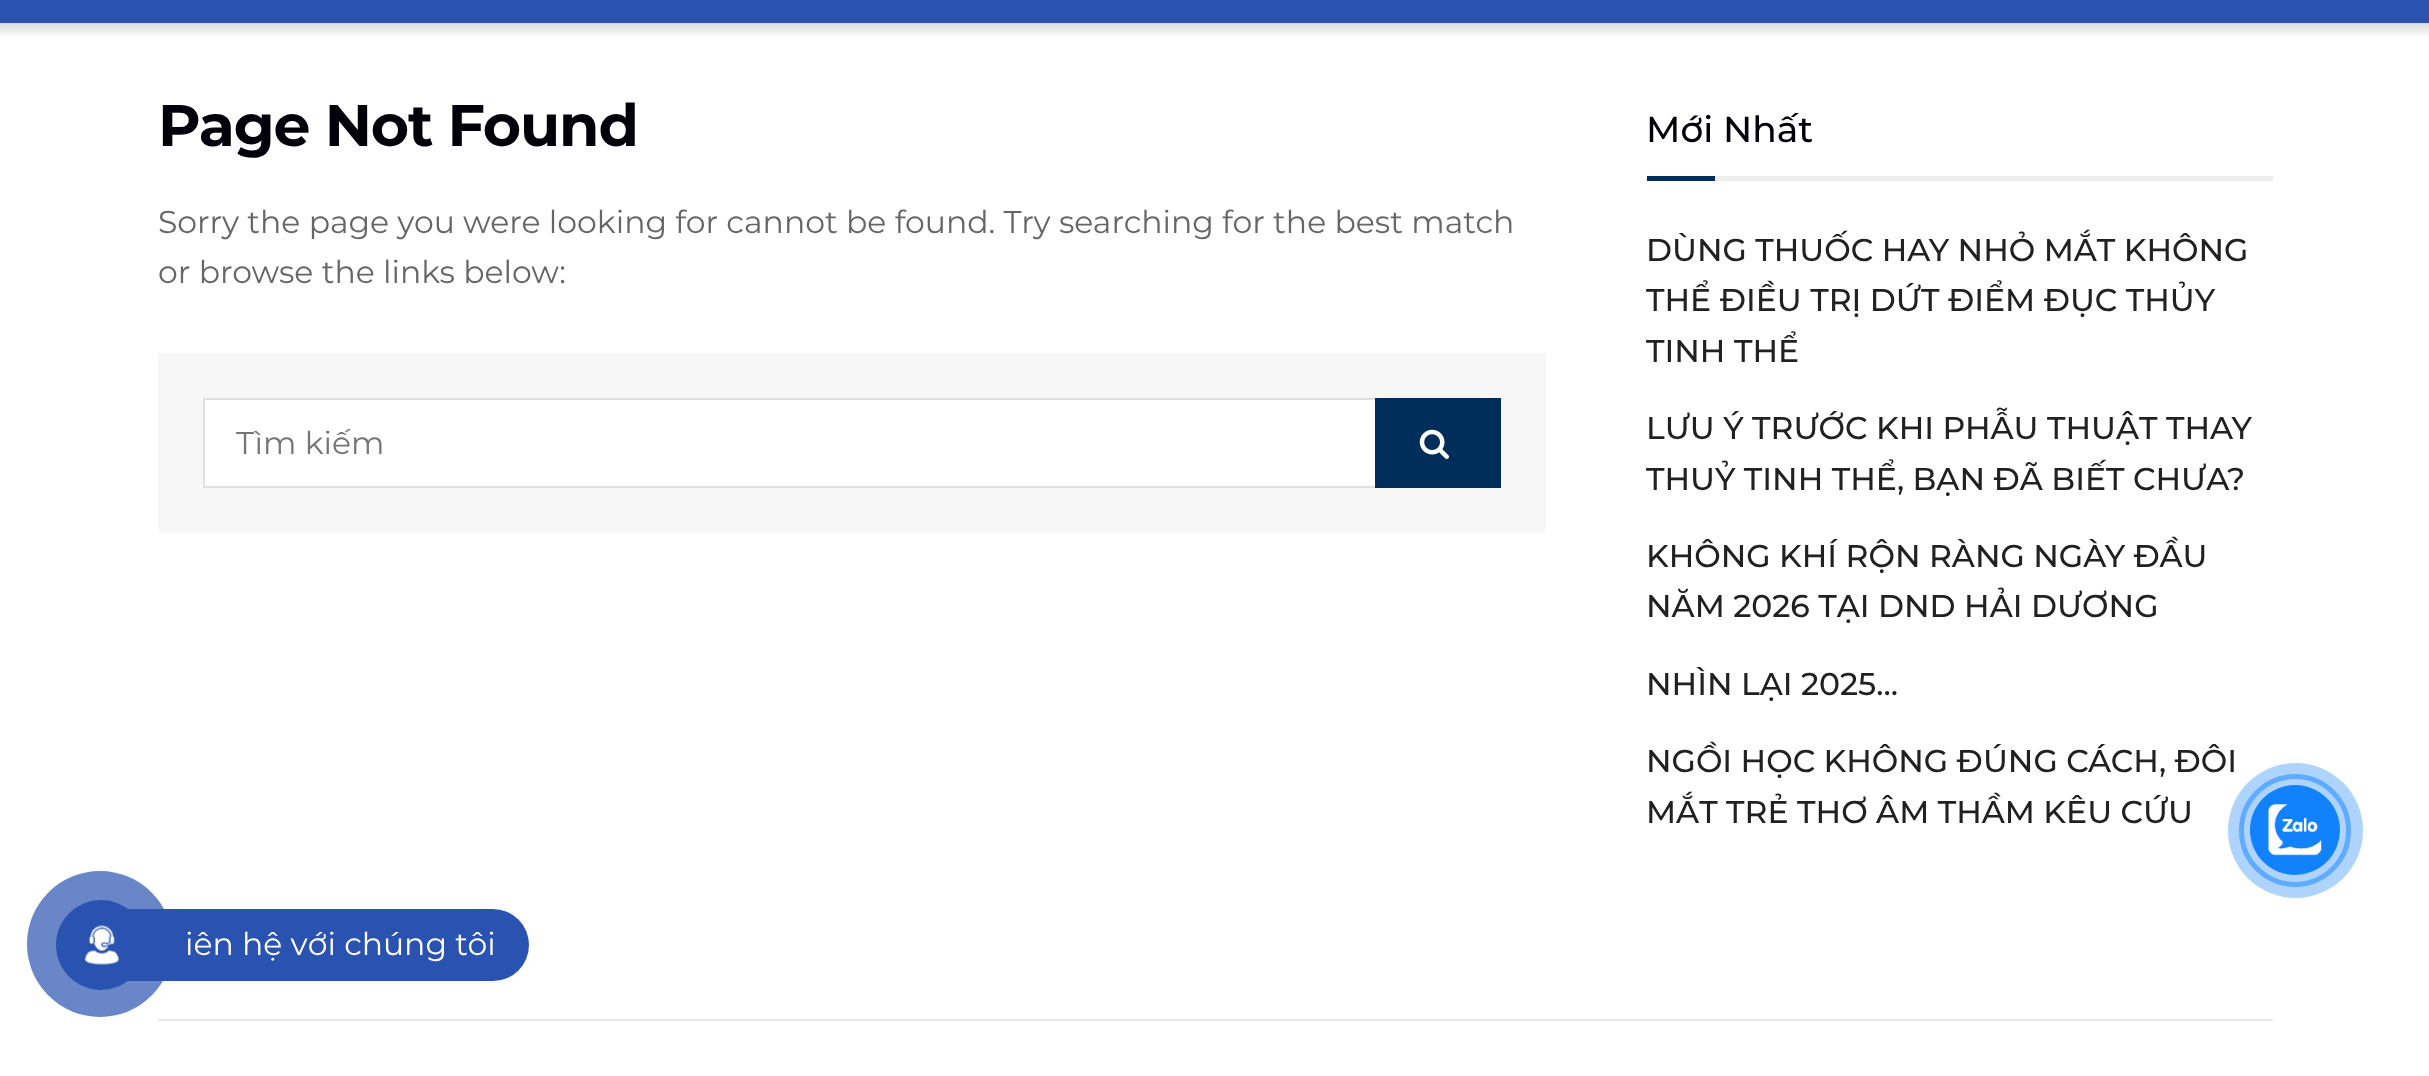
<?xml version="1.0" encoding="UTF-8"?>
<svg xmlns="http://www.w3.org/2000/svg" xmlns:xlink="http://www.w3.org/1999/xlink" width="2429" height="1076">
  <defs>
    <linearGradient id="g1" gradientUnits="userSpaceOnUse" x1="1215" y1="22" x2="1215" y2="38"><stop offset="0" stop-color="#d9d9d9" /><stop offset="1" stop-color="#ffffff" /></linearGradient>
  </defs>
  <rect width="100%" height="100%" fill="#ffffff" />
  <rect width="2429" height="23" fill="#2a53b1" />
  <rect y="23" width="2429" height="14" fill="url(#g1)" />
  <rect x="158" y="353" width="1388" height="180" fill="#f7f7f7" />
  <rect x="205" y="400" width="1170" height="86" fill="#ffffff" />
  <rect x="204" y="399" width="1296" height="88" fill="none" stroke="#e0e0e0" stroke-width="2" />
  <rect x="1375" y="398" width="126" height="90" fill="#002e5b" />
  <image x="1419" y="429" width="30" height="30" xlink:href="image1.png" />
  <rect x="1715" y="176" width="558" height="5" fill="#eeeeee" />
  <rect x="1647" y="176" width="68" height="5" fill="#002e5b" />
  <rect x="158" y="1019" width="2115" height="2" fill="#ebebeb" />
  <rect x="2241.5" y="776.5" width="107" height="108" rx="53.5" fill="none" stroke="#88c1fe" stroke-width="5" />
  <rect x="59" y="909" width="470" height="72" rx="36" fill="#2a53b1" />
  <circle cx="100" cy="944" r="73" fill="#2a53b1" fill-opacity="0.7" />
  <circle cx="101" cy="945" r="45" fill="#2a53b1" />
  <image x="84" y="925" width="35" height="40" xlink:href="image3.png" />
  <text x="158" y="146" style="font-family: Montserrat; font-size: 58.5px; font-weight: bold; letter-spacing: -1.2px; fill: #02010a">Page Not Found</text>
  <text x="158" y="233" style="font-family: Montserrat; font-size: 31.5px; fill: #666666">Sorry the page you were looking for cannot be found. Try searching for the best match</text>
  <text x="158" y="283" style="font-family: Montserrat; font-size: 31.5px; fill: #666666">or browse the links below:</text>
  <text x="236" y="454" style="font-family: Montserrat; font-size: 31.5px; fill: #757575">Tìm kiếm</text>
  <text x="1646" y="142" style="font-family: Montserrat; font-size: 36px; font-weight: 500; fill: #02010a">Mới Nhất</text>
  <text x="1646" y="261" style="font-family: Montserrat; font-size: 31.5px; font-weight: 500; fill: #212121">DÙNG THUỐC HAY NHỎ MẮT KHÔNG</text>
  <text x="1646" y="311" style="font-family: Montserrat; font-size: 31.5px; font-weight: 500; fill: #212121">THỂ ĐIỀU TRỊ DỨT ĐIỂM ĐỤC THỦY</text>
  <text x="1646" y="362" style="font-family: Montserrat; font-size: 31.5px; font-weight: 500; fill: #212121">TINH THỂ</text>
  <text x="1646" y="439" style="font-family: Montserrat; font-size: 31.5px; font-weight: 500; fill: #212121">LƯU Ý TRƯỚC KHI PHẪU THUẬT THAY</text>
  <text x="1646" y="490" style="font-family: Montserrat; font-size: 31.5px; font-weight: 500; fill: #212121">THUỶ TINH THỂ, BẠN ĐÃ BIẾT CHƯA?</text>
  <text x="1646" y="567" style="font-family: Montserrat; font-size: 31.5px; font-weight: 500; fill: #212121">KHÔNG KHÍ RỘN RÀNG NGÀY ĐẦU</text>
  <text x="1646" y="617" style="font-family: Montserrat; font-size: 31.5px; font-weight: 500; fill: #212121">NĂM 2026 TẠI DND HẢI DƯƠNG</text>
  <text x="1646" y="695" style="font-family: Montserrat; font-size: 31.5px; font-weight: 500; fill: #212121">NHÌN LẠI 2025…</text>
  <text x="1646" y="772" style="font-family: Montserrat; font-size: 31.5px; font-weight: 500; fill: #212121">NGỒI HỌC KHÔNG ĐÚNG CÁCH, ĐÔI</text>
  <text x="1646" y="823" style="font-family: Montserrat; font-size: 31.5px; font-weight: 500; fill: #212121">MẮT TRẺ THƠ ÂM THẦM KÊU CỨU</text>
  <circle cx="2295.5" cy="830.5" r="67.5" fill="#1182fc" fill-opacity="0.34" />
  <circle cx="2295" cy="830" r="45" fill="#1182fc" />
  <image x="2268" y="804" width="54" height="52" xlink:href="image2.png" />
  <text x="185" y="955" style="font-family: Montserrat; font-size: 31.5px; fill: #ffffff">iên hệ với chúng tôi</text>
</svg>
